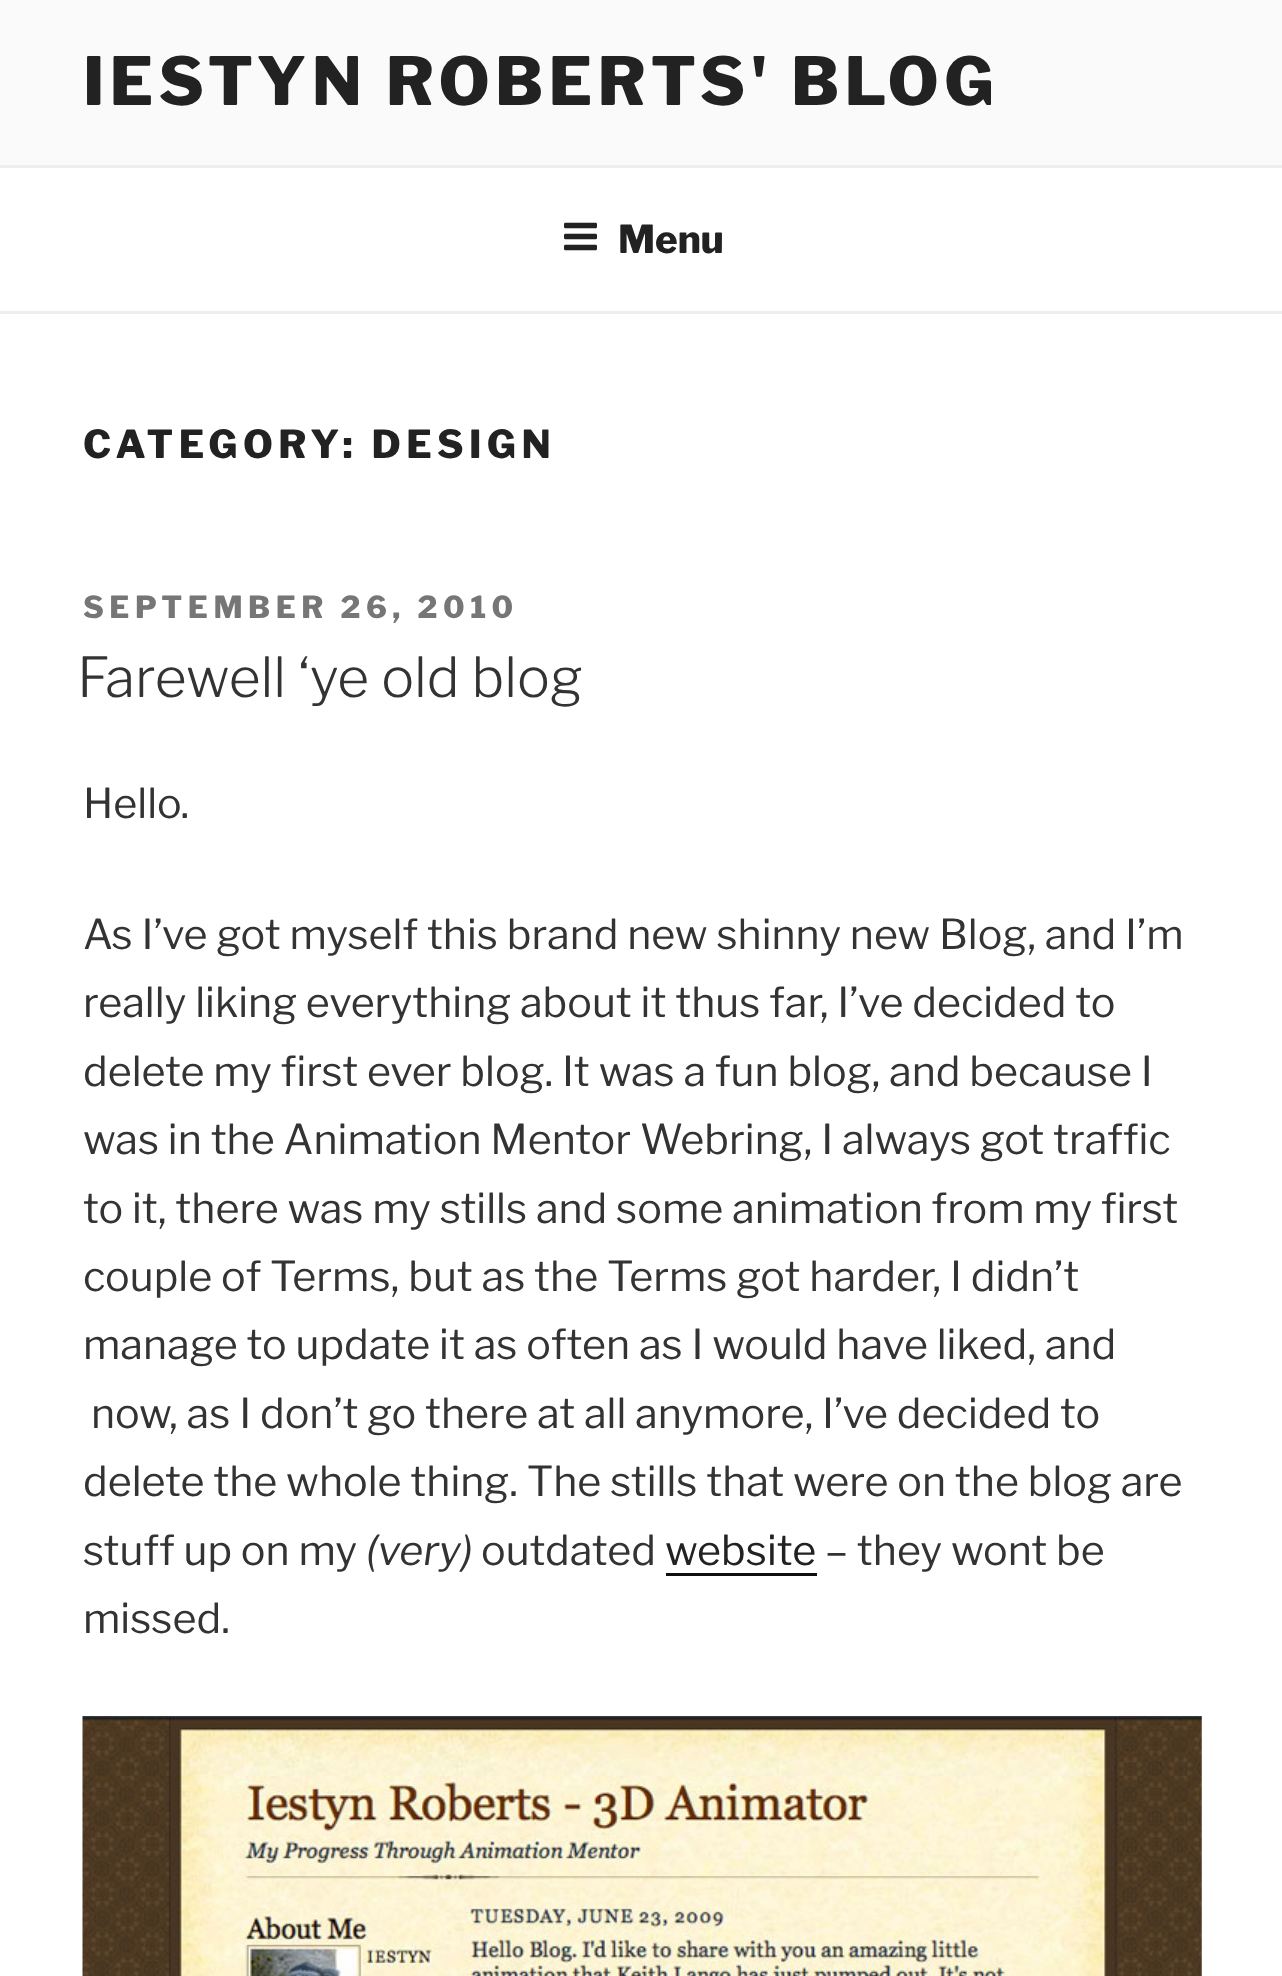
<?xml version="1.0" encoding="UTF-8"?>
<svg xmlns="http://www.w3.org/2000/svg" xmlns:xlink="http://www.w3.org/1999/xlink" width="1282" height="1976">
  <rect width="100%" height="100%" fill="#ffffff" />
  <rect width="1282" height="165" fill="#fafafa" />
  <rect y="165" width="1282" height="3" fill="#eeeeee" />
  <rect y="311" width="1282" height="3" fill="#eeeeee" />
  <image x="564" y="222" width="33" height="29" xlink:href="image1.png" />
  <rect x="666" y="1573" width="151" height="3" fill="#0f0f0f" />
  <image x="82" y="1716" width="1120" height="260" xlink:href="image2.png" />
  <text x="83" y="105" style="font-family: Libre Franklin; font-size: 66px; font-weight: 800; letter-spacing: 5.25px; fill: #222222">IESTYN ROBERTS' BLOG</text>
  <text x="618" y="253" style="font-family: Libre Franklin; font-size: 38.5px; font-weight: 800; fill: #222222">Menu</text>
  <text x="83" y="458" style="font-family: Libre Franklin; font-size: 38.5px; font-weight: 800; letter-spacing: 5.4px; fill: #222222">CATEGORY: DESIGN</text>
  <text x="83" y="618" style="font-family: Libre Franklin; font-size: 30.25px; font-weight: 800; letter-spacing: 5.5px; fill: #767676">SEPTEMBER 26, 2010</text>
  <text x="77" y="697" style="font-family: Libre Franklin; font-size: 55px; font-weight: 300; fill: #333333">Farewell ‘ye old blog</text>
  <text x="83" y="818" style="font-family: Libre Franklin; font-size: 41.25px; fill: #333333">Hello.</text>
  <text x="83" y="949" style="font-family: Libre Franklin; font-size: 41.25px; fill: #333333">As I’ve got myself this brand new shinny new Blog, and I’m</text>
  <text x="83" y="1017" style="font-family: Libre Franklin; font-size: 41.25px; fill: #333333">really liking everything about it thus far, I’ve decided to</text>
  <text x="83" y="1086" style="font-family: Libre Franklin; font-size: 41.25px; fill: #333333">delete my first ever blog. It was a fun blog, and because I</text>
  <text x="83" y="1154" style="font-family: Libre Franklin; font-size: 41.25px; fill: #333333">was in the Animation Mentor Webring, I always got traffic</text>
  <text x="83" y="1223" style="font-family: Libre Franklin; font-size: 41.25px; fill: #333333">to it, there was my stills and some animation from my first</text>
  <text x="83" y="1291" style="font-family: Libre Franklin; font-size: 41.25px; fill: #333333">couple of Terms, but as the Terms got harder, I didn’t</text>
  <text x="83" y="1359" style="font-family: Libre Franklin; font-size: 41.25px; fill: #333333">manage to update it as often as I would have liked, and</text>
  <text x="91" y="1428" style="font-family: Libre Franklin; font-size: 41.25px; fill: #333333">now, as I don’t go there at all anymore, I’ve decided to</text>
  <text x="83" y="1496" style="font-family: Libre Franklin; font-size: 41.25px; fill: #333333">delete the whole thing. The stills that were on the blog are</text>
  <text x="83" y="1565" style="font-family: Libre Franklin; font-size: 41.25px; fill: #333333">stuff up on my</text>
  <text x="366" y="1565" style="font-family: Libre Franklin; font-size: 41.25px; font-style: italic; fill: #333333">(very)</text>
  <text x="481" y="1565" style="font-family: Libre Franklin; font-size: 41.25px; fill: #333333">outdated</text>
  <text x="665" y="1565" style="font-family: Libre Franklin; font-size: 41.25px; fill: #222222">website</text>
  <text x="825" y="1565" style="font-family: Libre Franklin; font-size: 41.25px; fill: #333333">– they wont be</text>
  <text x="83" y="1633" style="font-family: Libre Franklin; font-size: 41.25px; fill: #333333">missed.</text>
</svg>
